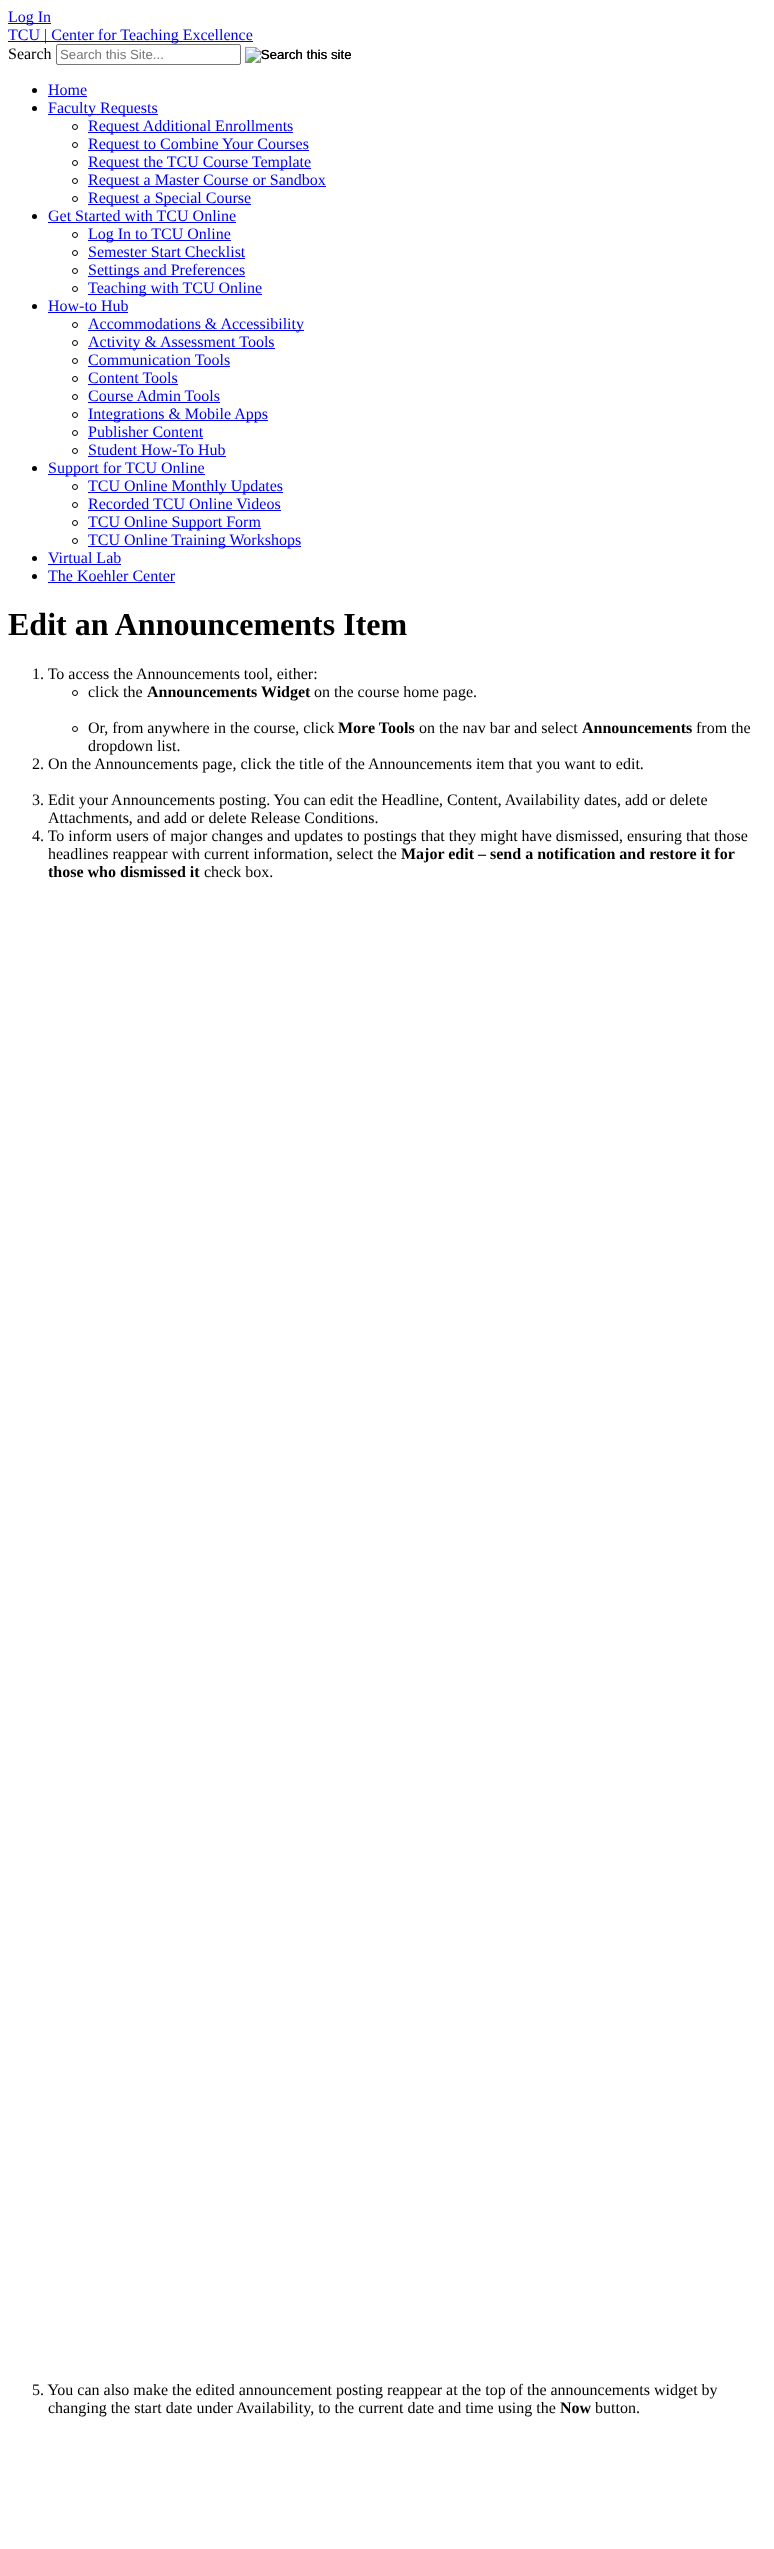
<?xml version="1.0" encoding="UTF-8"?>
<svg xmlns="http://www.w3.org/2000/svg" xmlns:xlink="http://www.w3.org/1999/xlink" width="774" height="2549">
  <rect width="100%" height="100%" fill="#ffffff" />
  <rect x="8" y="23" width="43" height="1" fill="#0000ee" />
  <rect x="8" y="41" width="245" height="1" fill="#0000ee" />
  <rect x="56.5" y="44.5" width="184" height="20" rx="1.5" fill="none" stroke="#767676" />
  <image x="245" y="47" width="107" height="16" xlink:href="image1.png" />
  <circle cx="34.5" cy="90.5" r="2.5" fill="#000000" />
  <rect x="48" y="96" width="39" height="1" fill="#0000ee" />
  <circle cx="34.5" cy="108.5" r="2.5" fill="#000000" />
  <rect x="48" y="114" width="110" height="1" fill="#0000ee" />
  <circle cx="75" cy="127" r="2.5" fill="none" stroke="#000000" />
  <rect x="88" y="132" width="205" height="1" fill="#0000ee" />
  <circle cx="75" cy="145" r="2.5" fill="none" stroke="#000000" />
  <rect x="88" y="150" width="221" height="1" fill="#0000ee" />
  <circle cx="75" cy="163" r="2.5" fill="none" stroke="#000000" />
  <rect x="88" y="168" width="223" height="1" fill="#0000ee" />
  <circle cx="75" cy="181" r="2.5" fill="none" stroke="#000000" />
  <rect x="88" y="186" width="238" height="1" fill="#0000ee" />
  <circle cx="75" cy="199" r="2.5" fill="none" stroke="#000000" />
  <rect x="88" y="204" width="163" height="1" fill="#0000ee" />
  <circle cx="34.5" cy="216.5" r="2.5" fill="#000000" />
  <rect x="48" y="222" width="188" height="1" fill="#0000ee" />
  <circle cx="75" cy="235" r="2.5" fill="none" stroke="#000000" />
  <rect x="88" y="240" width="143" height="1" fill="#0000ee" />
  <circle cx="75" cy="253" r="2.5" fill="none" stroke="#000000" />
  <rect x="88" y="258" width="157" height="1" fill="#0000ee" />
  <circle cx="75" cy="271" r="2.5" fill="none" stroke="#000000" />
  <rect x="88" y="276" width="157" height="1" fill="#0000ee" />
  <circle cx="75" cy="289" r="2.5" fill="none" stroke="#000000" />
  <rect x="88" y="294" width="174" height="1" fill="#0000ee" />
  <circle cx="34.5" cy="306.5" r="2.5" fill="#000000" />
  <rect x="48" y="312" width="80" height="1" fill="#0000ee" />
  <circle cx="75" cy="325" r="2.5" fill="none" stroke="#000000" />
  <rect x="88" y="330" width="216" height="1" fill="#0000ee" />
  <circle cx="75" cy="343" r="2.5" fill="none" stroke="#000000" />
  <rect x="88" y="348" width="187" height="1" fill="#0000ee" />
  <circle cx="75" cy="361" r="2.5" fill="none" stroke="#000000" />
  <rect x="88" y="366" width="142" height="1" fill="#0000ee" />
  <circle cx="75" cy="379" r="2.5" fill="none" stroke="#000000" />
  <rect x="88" y="384" width="90" height="1" fill="#0000ee" />
  <circle cx="75" cy="397" r="2.5" fill="none" stroke="#000000" />
  <rect x="88" y="402" width="132" height="1" fill="#0000ee" />
  <circle cx="75" cy="415" r="2.5" fill="none" stroke="#000000" />
  <rect x="88" y="420" width="180" height="1" fill="#0000ee" />
  <circle cx="75" cy="433" r="2.5" fill="none" stroke="#000000" />
  <rect x="88" y="438" width="115" height="1" fill="#0000ee" />
  <circle cx="75" cy="451" r="2.5" fill="none" stroke="#000000" />
  <rect x="88" y="456" width="138" height="1" fill="#0000ee" />
  <circle cx="34.5" cy="468.5" r="2.5" fill="#000000" />
  <rect x="48" y="474" width="157" height="1" fill="#0000ee" />
  <circle cx="75" cy="487" r="2.5" fill="none" stroke="#000000" />
  <rect x="88" y="492" width="195" height="1" fill="#0000ee" />
  <circle cx="75" cy="505" r="2.5" fill="none" stroke="#000000" />
  <rect x="88" y="510" width="193" height="1" fill="#0000ee" />
  <circle cx="75" cy="523" r="2.5" fill="none" stroke="#000000" />
  <rect x="88" y="528" width="173" height="1" fill="#0000ee" />
  <circle cx="75" cy="541" r="2.5" fill="none" stroke="#000000" />
  <rect x="88" y="546" width="213" height="1" fill="#0000ee" />
  <circle cx="34.5" cy="558.5" r="2.5" fill="#000000" />
  <rect x="48" y="564" width="73" height="1" fill="#0000ee" />
  <circle cx="34.5" cy="576.5" r="2.5" fill="#000000" />
  <rect x="48" y="582" width="127" height="1" fill="#0000ee" />
  <circle cx="75" cy="693" r="2.5" fill="none" stroke="#000000" />
  <circle cx="75" cy="729" r="2.5" fill="none" stroke="#000000" />
  <text x="8" y="22" style="font-family: Liberation Serif; font-size: 16px; fill: #0000ee">Log In</text>
  <text x="8" y="40" style="font-family: Liberation Serif; font-size: 16px; fill: #0000ee">TCU | Center for Teaching Excellence</text>
  <text x="8" y="59" style="font-family: Liberation Serif; font-size: 16px; fill: #000000">Search</text>
  <text x="60" y="59" style="font-family: Liberation Sans; font-size: 13.25px; fill: #757575">Search this Site...</text>
  <text x="261" y="59" style="font-family: Liberation Sans; font-size: 13.25px; fill: #000000">Search this site</text>
  <text x="48" y="95" style="font-family: Liberation Serif; font-size: 16px; fill: #0000ee">Home</text>
  <text x="48" y="113" style="font-family: Liberation Serif; font-size: 16px; fill: #0000ee">Faculty Requests</text>
  <text x="88" y="131" style="font-family: Liberation Serif; font-size: 16px; fill: #0000ee">Request Additional Enrollments</text>
  <text x="88" y="149" style="font-family: Liberation Serif; font-size: 16px; fill: #0000ee">Request to Combine Your Courses</text>
  <text x="88" y="167" style="font-family: Liberation Serif; font-size: 16px; fill: #0000ee">Request the TCU Course Template</text>
  <text x="88" y="185" style="font-family: Liberation Serif; font-size: 16px; fill: #0000ee">Request a Master Course or Sandbox</text>
  <text x="88" y="203" style="font-family: Liberation Serif; font-size: 16px; fill: #0000ee">Request a Special Course</text>
  <text x="48" y="221" style="font-family: Liberation Serif; font-size: 16px; fill: #0000ee">Get Started with TCU Online</text>
  <text x="88" y="239" style="font-family: Liberation Serif; font-size: 16px; fill: #0000ee">Log In to TCU Online</text>
  <text x="88" y="257" style="font-family: Liberation Serif; font-size: 16px; fill: #0000ee">Semester Start Checklist</text>
  <text x="88" y="275" style="font-family: Liberation Serif; font-size: 16px; fill: #0000ee">Settings and Preferences</text>
  <text x="88" y="293" style="font-family: Liberation Serif; font-size: 16px; fill: #0000ee">Teaching with TCU Online</text>
  <text x="48" y="311" style="font-family: Liberation Serif; font-size: 16px; fill: #0000ee">How-to Hub</text>
  <text x="88" y="329" style="font-family: Liberation Serif; font-size: 16px; fill: #0000ee">Accommodations &amp; Accessibility</text>
  <text x="88" y="347" style="font-family: Liberation Serif; font-size: 16px; fill: #0000ee">Activity &amp; Assessment Tools</text>
  <text x="88" y="365" style="font-family: Liberation Serif; font-size: 16px; fill: #0000ee">Communication Tools</text>
  <text x="88" y="383" style="font-family: Liberation Serif; font-size: 16px; fill: #0000ee">Content Tools</text>
  <text x="88" y="401" style="font-family: Liberation Serif; font-size: 16px; fill: #0000ee">Course Admin Tools</text>
  <text x="88" y="419" style="font-family: Liberation Serif; font-size: 16px; fill: #0000ee">Integrations &amp; Mobile Apps</text>
  <text x="88" y="437" style="font-family: Liberation Serif; font-size: 16px; fill: #0000ee">Publisher Content</text>
  <text x="88" y="455" style="font-family: Liberation Serif; font-size: 16px; fill: #0000ee">Student How-To Hub</text>
  <text x="48" y="473" style="font-family: Liberation Serif; font-size: 16px; fill: #0000ee">Support for TCU Online</text>
  <text x="88" y="491" style="font-family: Liberation Serif; font-size: 16px; fill: #0000ee">TCU Online Monthly Updates</text>
  <text x="88" y="509" style="font-family: Liberation Serif; font-size: 16px; fill: #0000ee">Recorded TCU Online Videos</text>
  <text x="88" y="527" style="font-family: Liberation Serif; font-size: 16px; fill: #0000ee">TCU Online Support Form</text>
  <text x="88" y="545" style="font-family: Liberation Serif; font-size: 16px; fill: #0000ee">TCU Online Training Workshops</text>
  <text x="48" y="563" style="font-family: Liberation Serif; font-size: 16px; fill: #0000ee">Virtual Lab</text>
  <text x="48" y="581" style="font-family: Liberation Serif; font-size: 16px; fill: #0000ee">The Koehler Center</text>
  <text x="8" y="635" style="font-family: Liberation Serif; font-size: 32px; font-weight: bold; fill: #000000">Edit an Announcements Item</text>
  <text x="32" y="679" style="font-family: Liberation Serif; font-size: 16px; fill: #000000">1. To access the Announcements tool, either:</text>
  <text x="88" y="697" style="font-family: Liberation Serif; font-size: 16px; fill: #000000">click the</text>
  <text x="147" y="697" style="font-family: Liberation Serif; font-size: 16px; font-weight: bold; fill: #000000">Announcements Widget</text>
  <text x="314" y="697" style="font-family: Liberation Serif; font-size: 16px; fill: #000000">on the course home page.</text>
  <text x="88" y="733" style="font-family: Liberation Serif; font-size: 16px; fill: #000000">Or, from anywhere in the course, click</text>
  <text x="338" y="733" style="font-family: Liberation Serif; font-size: 16px; font-weight: bold; fill: #000000">More Tools</text>
  <text x="419" y="733" style="font-family: Liberation Serif; font-size: 16px; fill: #000000">on the nav bar and select</text>
  <text x="582" y="733" style="font-family: Liberation Serif; font-size: 16px; font-weight: bold; fill: #000000">Announcements</text>
  <text x="696" y="733" style="font-family: Liberation Serif; font-size: 16px; fill: #000000">from the</text>
  <text x="88" y="751" style="font-family: Liberation Serif; font-size: 16px; fill: #000000">dropdown list.</text>
  <text x="32" y="769" style="font-family: Liberation Serif; font-size: 16px; fill: #000000">2. On the Announcements page, click the title of the Announcements item that you want to edit.</text>
  <text x="32" y="805" style="font-family: Liberation Serif; font-size: 16px; fill: #000000">3. Edit your Announcements posting. You can edit the Headline, Content, Availability dates, add or delete</text>
  <text x="48" y="823" style="font-family: Liberation Serif; font-size: 16px; fill: #000000">Attachments, and add or delete Release Conditions.</text>
  <text x="32" y="841" style="font-family: Liberation Serif; font-size: 16px; fill: #000000">4. To inform users of major changes and updates to postings that they might have dismissed, ensuring that those</text>
  <text x="48" y="859" style="font-family: Liberation Serif; font-size: 16px; fill: #000000">headlines reappear with current information, select the</text>
  <text x="401" y="859" style="font-family: Liberation Serif; font-size: 16px; font-weight: bold; fill: #000000">Major edit – send a notification and restore it for</text>
  <text x="48" y="877" style="font-family: Liberation Serif; font-size: 16px; font-weight: bold; fill: #000000">those who dismissed it</text>
  <text x="204" y="877" style="font-family: Liberation Serif; font-size: 16px; fill: #000000">check box.</text>
  <text x="32" y="2395" style="font-family: Liberation Serif; font-size: 16px; fill: #000000">5. You can also make the edited announcement posting reappear at the top of the announcements widget by</text>
  <text x="48" y="2413" style="font-family: Liberation Serif; font-size: 16px; fill: #000000">changing the start date under Availability, to the current date and time using the</text>
  <text x="560" y="2413" style="font-family: Liberation Serif; font-size: 16px; font-weight: bold; fill: #000000">Now</text>
  <text x="595" y="2413" style="font-family: Liberation Serif; font-size: 16px; fill: #000000">button.</text>
</svg>
